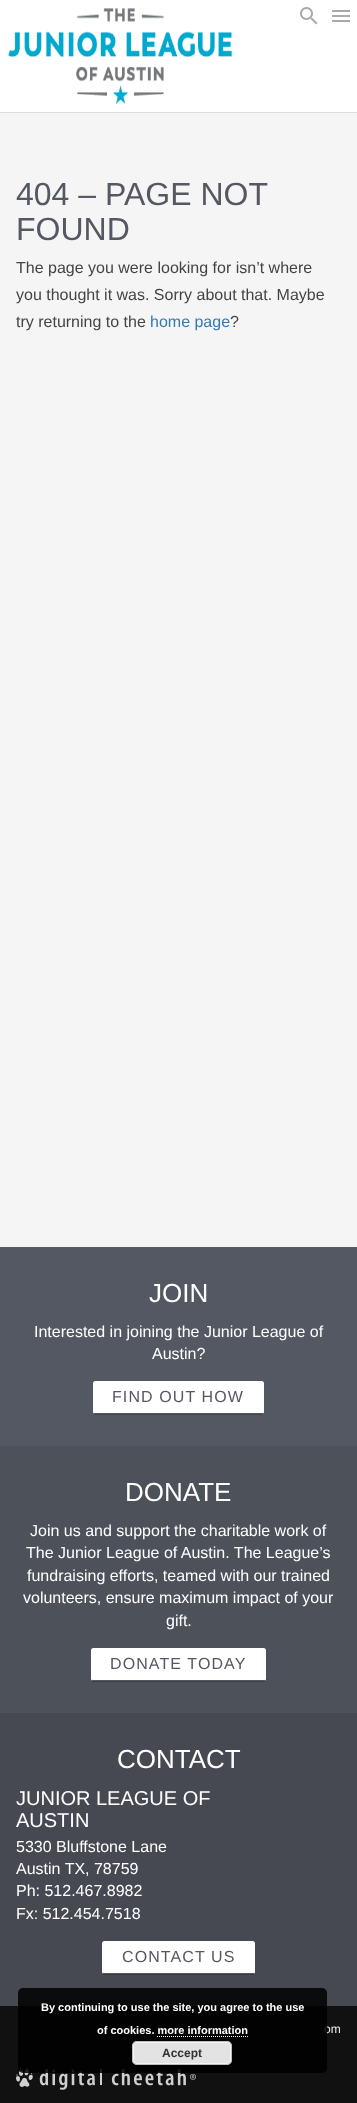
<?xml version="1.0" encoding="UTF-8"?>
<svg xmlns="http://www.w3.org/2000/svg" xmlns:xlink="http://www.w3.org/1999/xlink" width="357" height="2103">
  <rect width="100%" height="100%" fill="#f5f5f5" />
  <rect y="112" width="357" height="1" fill="#dddddd" />
  <rect width="357" height="112" fill="#ffffff" />
  <image x="8" y="8" width="224" height="96" xlink:href="image1.png" />
  <image x="300" y="7" width="18" height="18" xlink:href="image2.png" />
  <image x="332" y="10" width="18" height="12" xlink:href="image3.png" />
  <rect y="1247" width="357" height="199" fill="#545862" />
  <rect x="93" y="1382" width="171" height="33" rx="2.5" fill="#000000" fill-opacity="0.2" filter="blur(0.5px)" />
  <rect x="93" y="1381" width="171" height="33" rx="2.5" fill="#ffffff" />
  <rect x="94" y="1413" width="169" height="1" fill="#545862" />
  <rect y="1446" width="357" height="267" fill="#4d515a" />
  <rect x="91" y="1649" width="175" height="33" rx="2.5" fill="#000000" fill-opacity="0.2" filter="blur(0.5px)" />
  <rect x="91" y="1648" width="175" height="33" rx="2.5" fill="#ffffff" />
  <rect x="92" y="1680" width="173" height="1" fill="#545862" />
  <rect y="1713" width="357" height="293" fill="#464952" />
  <rect x="102" y="1942" width="153" height="33" rx="2.5" fill="#000000" fill-opacity="0.2" filter="blur(0.5px)" />
  <rect x="102" y="1941" width="153" height="33" rx="2.5" fill="#ffffff" />
  <rect x="103" y="1973" width="151" height="1" fill="#545862" />
  <rect y="2006" width="357" height="97" fill="#111111" />
  <image x="16" y="2067" width="180" height="23" xlink:href="image4.png" />
  <text x="16" y="205" style="font-family: Liberation Sans; font-size: 32px; fill: #545862">404 – PAGE NOT</text>
  <text x="16" y="240" style="font-family: Liberation Sans; font-size: 32px; fill: #545862">FOUND</text>
  <text x="16" y="273" style="font-family: Liberation Sans; font-size: 16px; fill: #444444">The page you were looking for isn’t where</text>
  <text x="16" y="300" style="font-family: Liberation Sans; font-size: 16px; fill: #444444">you thought it was. Sorry about that. Maybe</text>
  <text x="16" y="327" style="font-family: Liberation Sans; font-size: 16px; fill: #444444">try returning to the</text>
  <text x="150" y="327" style="font-family: Liberation Sans; font-size: 16px; fill: #337ab7">home page</text>
  <text x="230" y="327" style="font-family: Liberation Sans; font-size: 16px; fill: #444444">?</text>
  <text x="149" y="1302" style="font-family: Liberation Sans; font-size: 26px; fill: #ffffff">JOIN</text>
  <text x="34" y="1337" style="font-family: Liberation Sans; font-size: 16px; fill: #ffffff">Interested in joining the Junior League of</text>
  <text x="152" y="1359" style="font-family: Liberation Sans; font-size: 16px; fill: #ffffff">Austin?</text>
  <text x="112" y="1402" style="font-family: Liberation Sans; font-size: 16px; letter-spacing: 1.1px; fill: #545862">FIND OUT HOW</text>
  <text x="125" y="1501" style="font-family: Liberation Sans; font-size: 26px; fill: #ffffff">DONATE</text>
  <text x="30" y="1536" style="font-family: Liberation Sans; font-size: 16px; fill: #ffffff">Join us and support the charitable work of</text>
  <text x="26" y="1558" style="font-family: Liberation Sans; font-size: 16px; fill: #ffffff">The Junior League of Austin. The League’s</text>
  <text x="27" y="1581" style="font-family: Liberation Sans; font-size: 16px; fill: #ffffff">fundraising efforts, teamed with our trained</text>
  <text x="23" y="1603" style="font-family: Liberation Sans; font-size: 16px; fill: #ffffff">volunteers, ensure maximum impact of your</text>
  <text x="166" y="1626" style="font-family: Liberation Sans; font-size: 16px; fill: #ffffff">gift.</text>
  <text x="110" y="1669" style="font-family: Liberation Sans; font-size: 16px; letter-spacing: 1.1px; fill: #545862">DONATE TODAY</text>
  <text x="117" y="1768" style="font-family: Liberation Sans; font-size: 26px; fill: #ffffff">CONTACT</text>
  <text x="16" y="1805" style="font-family: Liberation Sans; font-size: 20px; fill: #ffffff">JUNIOR LEAGUE OF</text>
  <text x="16" y="1827" style="font-family: Liberation Sans; font-size: 20px; fill: #ffffff">AUSTIN</text>
  <text x="16" y="1852" style="font-family: Liberation Sans; font-size: 16px; fill: #ffffff">5330 Bluffstone Lane</text>
  <text x="16" y="1874" style="font-family: Liberation Sans; font-size: 16px; fill: #ffffff">Austin TX, 78759</text>
  <text x="16" y="1896" style="font-family: Liberation Sans; font-size: 16px; fill: #ffffff">Ph: 512.467.8982</text>
  <text x="16" y="1919" style="font-family: Liberation Sans; font-size: 16px; fill: #ffffff">Fx: 512.454.7518</text>
  <text x="122" y="1962" style="font-family: Liberation Sans; font-size: 16px; letter-spacing: 1.1px; fill: #545862">CONTACT US</text>
  <text x="324" y="2033" style="font-family: Liberation Sans; font-size: 12px; fill: #eeeeee">om</text>
  <rect x="18" y="1988" width="309" height="85" rx="5" fill="#000000" fill-opacity="0.85" />
  <text x="41" y="2011" style="font-family: Liberation Sans; font-size: 11px; font-weight: bold; fill: #ffffff">By continuing to use the site, you agree to the use</text>
  <text x="97" y="2034" style="font-family: Liberation Sans; font-size: 11px; font-weight: bold; fill: #ffffff">of cookies. more information</text>
  <path d="M 157 2036.5 h 91" fill="none" stroke="#ffffff" stroke-dasharray="1 1" />
  <rect x="132" y="2041" width="100" height="24" rx="5" fill="#e3e3e3" />
  <rect x="133.5" y="2042.5" width="97" height="21" rx="3.5" fill="none" stroke="#f6f6f6" />
  <rect x="132.5" y="2041.5" width="99" height="23" rx="4.5" fill="none" stroke="#bbbbbb" />
  <text x="162" y="2057" style="font-family: Liberation Sans; font-size: 12px; font-weight: bold; fill: #333333">Accept</text>
</svg>
